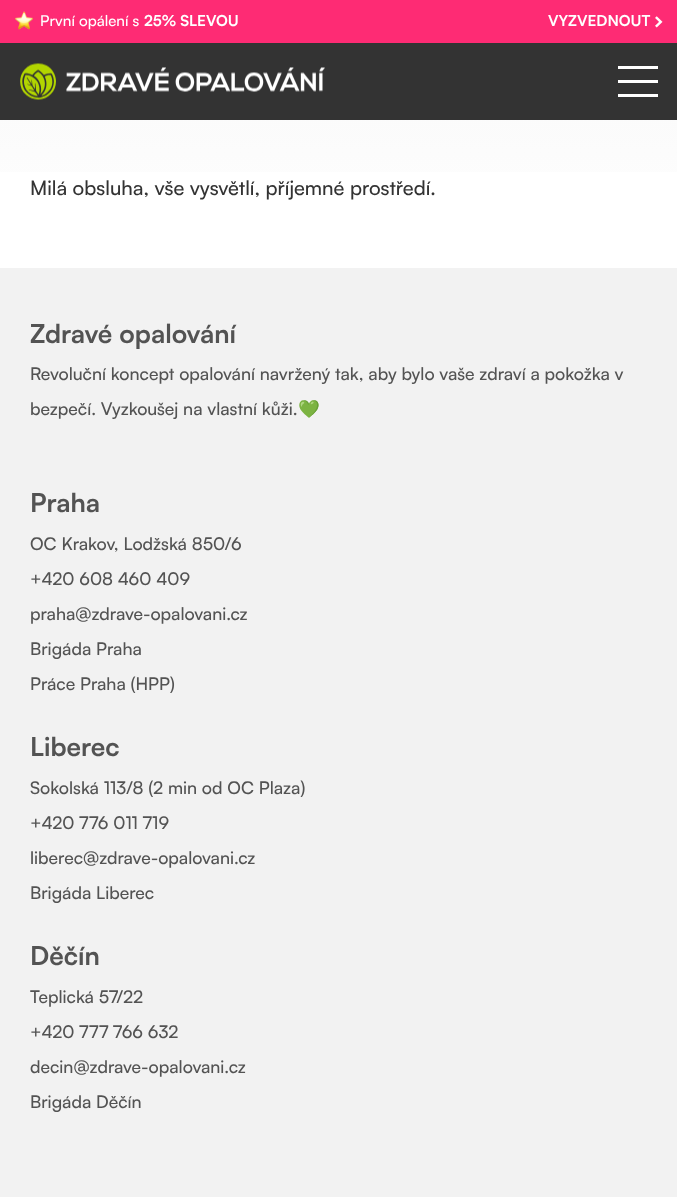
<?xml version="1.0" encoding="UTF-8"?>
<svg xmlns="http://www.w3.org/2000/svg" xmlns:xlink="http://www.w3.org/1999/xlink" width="677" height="1197">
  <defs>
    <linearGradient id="g1" gradientUnits="userSpaceOnUse" x1="339" y1="268" x2="339" y2="0"><stop offset="0" stop-color="#ffffff" /><stop offset="1" stop-color="#f8f8f8" /></linearGradient>
  </defs>
  <rect width="100%" height="100%" fill="#ffffff" />
  <rect y="120" width="677" height="52" fill="url(#g1)" />
  <rect width="677" height="43" fill="#fe2b74" />
  <image x="15" y="11" width="18" height="19" xlink:href="image1.png" />
  <image x="655" y="16" width="8" height="12" xlink:href="image2.png" />
  <rect y="43" width="677" height="77" fill="#333333" />
  <image x="20" y="63" width="305" height="37" xlink:href="image3.png" />
  <rect x="618" y="80" width="40" height="3" fill="#ffffff" />
  <rect x="618" y="66" width="40" height="3" fill="#ffffff" />
  <rect x="618" y="94" width="40" height="3" fill="#ffffff" />
  <rect y="268" width="677" height="929" fill="#f2f2f2" />
  <text x="40" y="26" style="font-family: Satoshi; font-size: 15px; font-weight: 500; fill: #ffffff">První opálení s</text>
  <text x="144" y="26" style="font-family: Satoshi; font-size: 15px; font-weight: bold; fill: #ffffff">25% SLEVOU</text>
  <text x="548" y="26" style="font-family: Satoshi; font-size: 15px; font-weight: bold; fill: #ffffff">VYZVEDNOUT</text>
  <text x="30" y="195" style="font-family: Satoshi; font-size: 20px; font-weight: 500; fill: #333333">Milá obsluha, vše vysvětlí, příjemné prostředí.</text>
  <text x="30" y="343" style="font-family: Satoshi; font-size: 26px; font-weight: bold; fill: #535353">Zdravé opalování</text>
  <text x="30" y="380" style="font-family: Satoshi; font-size: 17.5px; font-weight: 500; fill: #535353">Revoluční koncept opalování navržený tak, aby bylo vaše zdraví a pokožka v</text>
  <text x="30" y="415" style="font-family: Satoshi; font-size: 17.5px; font-weight: 500; fill: #535353">bezpečí. Vyzkoušej na vlastní kůži.</text>
  <text x="298" y="415" style="font-family: Noto Color Emoji; font-size: 17.5px; fill: #535353">💚</text>
  <text x="30" y="512" style="font-family: Satoshi; font-size: 26px; font-weight: bold; fill: #535353">Praha</text>
  <text x="30" y="550" style="font-family: Satoshi; font-size: 17.5px; font-weight: 500; fill: #535353">OC Krakov, Lodžská 850/6</text>
  <text x="30" y="585" style="font-family: Satoshi; font-size: 17.5px; font-weight: 500; fill: #535353">+420 608 460 409</text>
  <text x="30" y="620" style="font-family: Satoshi; font-size: 17.5px; font-weight: 500; fill: #535353">praha@zdrave-opalovani.cz</text>
  <text x="30" y="655" style="font-family: Satoshi; font-size: 17.5px; font-weight: 500; fill: #535353">Brigáda Praha</text>
  <text x="30" y="690" style="font-family: Satoshi; font-size: 17.5px; font-weight: 500; fill: #535353">Práce Praha (HPP)</text>
  <text x="30" y="756" style="font-family: Satoshi; font-size: 26px; font-weight: bold; fill: #535353">Liberec</text>
  <text x="30" y="794" style="font-family: Satoshi; font-size: 17.5px; font-weight: 500; fill: #535353">Sokolská 113/8 (2 min od OC Plaza)</text>
  <text x="30" y="829" style="font-family: Satoshi; font-size: 17.5px; font-weight: 500; fill: #535353">+420 776 011 719</text>
  <text x="30" y="864" style="font-family: Satoshi; font-size: 17.5px; font-weight: 500; fill: #535353">liberec@zdrave-opalovani.cz</text>
  <text x="30" y="899" style="font-family: Satoshi; font-size: 17.5px; font-weight: 500; fill: #535353">Brigáda Liberec</text>
  <text x="30" y="965" style="font-family: Satoshi; font-size: 26px; font-weight: bold; fill: #535353">Děčín</text>
  <text x="30" y="1003" style="font-family: Satoshi; font-size: 17.5px; font-weight: 500; fill: #535353">Teplická 57/22</text>
  <text x="30" y="1038" style="font-family: Satoshi; font-size: 17.5px; font-weight: 500; fill: #535353">+420 777 766 632</text>
  <text x="30" y="1073" style="font-family: Satoshi; font-size: 17.5px; font-weight: 500; fill: #535353">decin@zdrave-opalovani.cz</text>
  <text x="30" y="1108" style="font-family: Satoshi; font-size: 17.5px; font-weight: 500; fill: #535353">Brigáda Děčín</text>
</svg>
